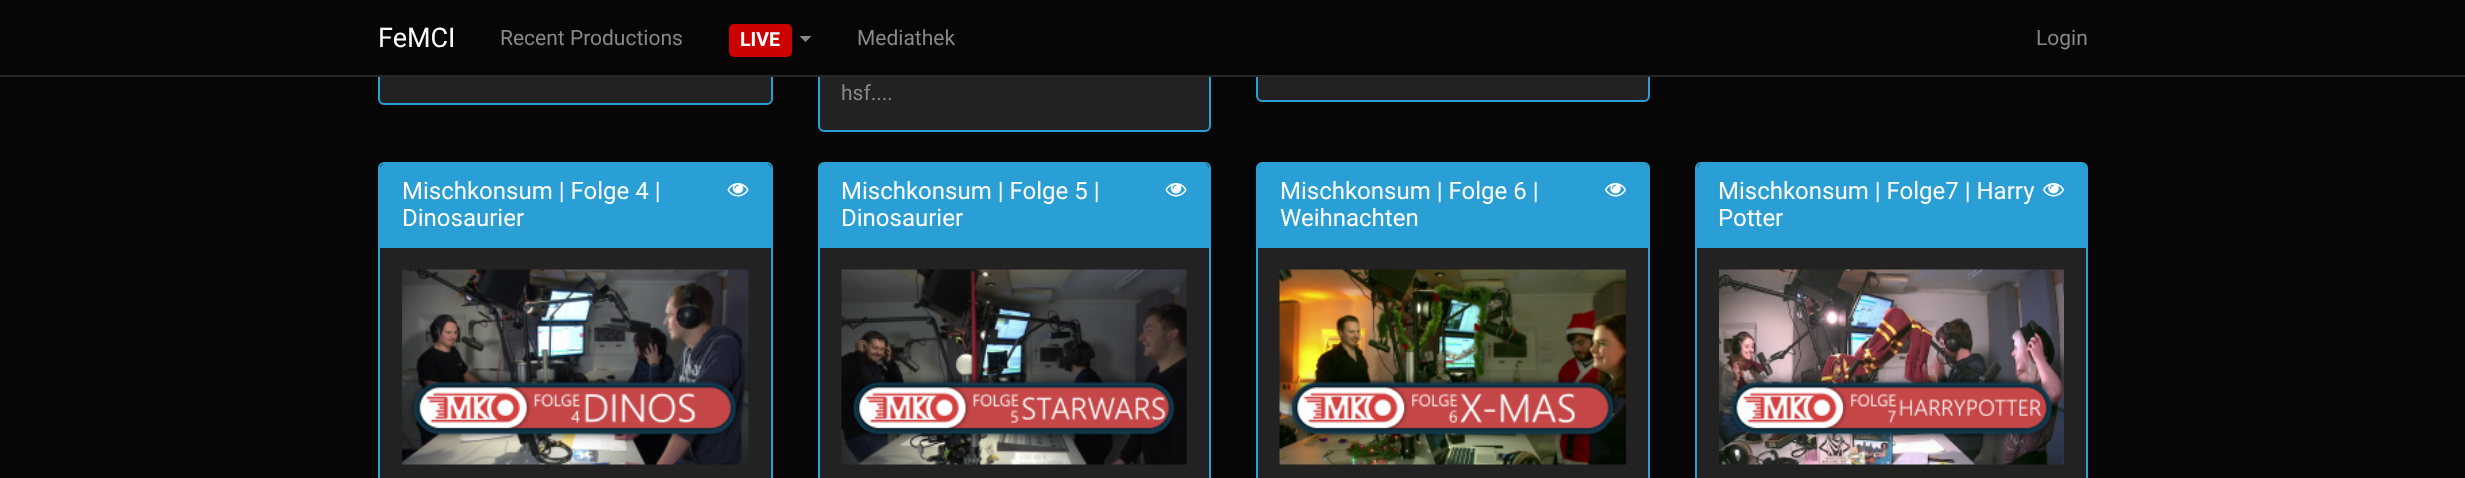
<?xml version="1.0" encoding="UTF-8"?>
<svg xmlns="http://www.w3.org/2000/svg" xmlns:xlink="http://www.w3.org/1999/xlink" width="2465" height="478">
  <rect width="100%" height="100%" fill="#060606" />
  <rect x="379" y="-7" width="393" height="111" rx="5" fill="#222222" stroke="#2a9fd6" stroke-width="2" />
  <rect x="819" y="-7" width="391" height="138" rx="5" fill="#222222" stroke="#2a9fd6" stroke-width="2" />
  <rect x="1257" y="-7" width="392" height="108" rx="5" fill="#222222" stroke="#2a9fd6" stroke-width="2" />
  <rect x="378" width="1272" height="75" fill="#060606" />
  <rect y="75" width="2465" height="2" fill="#282828" />
  <rect x="729" y="24" width="63" height="33" rx="5" fill="#cc0000" />
  <path d="M 799.5 36 h 12 l -6 6 z" fill="#888888" />
  <rect x="379" y="163" width="393" height="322" rx="5" fill="#222222" stroke="#2a9fd6" stroke-width="2" />
  <path d="M 385 164 h 381 c 3 0 5 2 5 5 v 79 h -391 v -79 c 0 -3 2 -5 5 -5 z" fill="#2a9fd6" />
  <image x="727" y="183" width="22" height="14" xlink:href="image1.png" />
  <image x="402" y="269" width="347" height="196" xlink:href="image2.png" />
  <rect x="819" y="163" width="391" height="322" rx="5" fill="#222222" stroke="#2a9fd6" stroke-width="2" />
  <path d="M 824 164 h 380 c 3 0 5 2 5 5 v 79 h -390 v -79 c 0 -3 2 -5 5 -5 z" fill="#2a9fd6" />
  <image x="1165" y="183" width="22" height="14" xlink:href="image1.png" />
  <image x="841" y="269" width="346" height="196" xlink:href="image3.png" />
  <rect x="1257" y="163" width="392" height="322" rx="5" fill="#222222" stroke="#2a9fd6" stroke-width="2" />
  <path d="M 1262 164 h 382 c 3 0 5 2 5 5 v 79 h -392 v -79 c 0 -3 2 -5 5 -5 z" fill="#2a9fd6" />
  <image x="1605" y="183" width="21" height="14" xlink:href="image4.png" />
  <image x="1279" y="269" width="347" height="196" xlink:href="image5.png" />
  <rect x="1696" y="163" width="391" height="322" rx="5" fill="#222222" stroke="#2a9fd6" stroke-width="2" />
  <path d="M 1702 164 h 380 c 3 0 5 2 5 5 v 79 h -390 v -79 c 0 -3 2 -5 5 -5 z" fill="#2a9fd6" />
  <image x="2043" y="183" width="21" height="14" xlink:href="image4.png" />
  <image x="1719" y="269" width="345" height="196" xlink:href="image6.png" />
  <text x="378" y="47" style="font-family: Roboto; font-size: 27px; fill: #ffffff">FeMCI</text>
  <text x="500" y="45" style="font-family: Roboto; font-size: 21px; fill: #888888">Recent Productions</text>
  <text x="740" y="46" style="font-family: Roboto; font-size: 19.5px; font-weight: bold; fill: #ffffff">LIVE</text>
  <text x="857" y="45" style="font-family: Roboto; font-size: 21px; fill: #888888">Mediathek</text>
  <text x="2036" y="45" style="font-family: Roboto; font-size: 21px; fill: #888888">Login</text>
  <text x="841" y="100" style="font-family: Roboto; font-size: 21px; fill: #888888">hsf....</text>
  <text x="402" y="199" style="font-family: Roboto; font-size: 24px; fill: #ffffff">Mischkonsum | Folge 4 |</text>
  <text x="402" y="226" style="font-family: Roboto; font-size: 24px; fill: #ffffff">Dinosaurier</text>
  <text x="841" y="199" style="font-family: Roboto; font-size: 24px; fill: #ffffff">Mischkonsum | Folge 5 |</text>
  <text x="841" y="226" style="font-family: Roboto; font-size: 24px; fill: #ffffff">Dinosaurier</text>
  <text x="1280" y="199" style="font-family: Roboto; font-size: 24px; fill: #ffffff">Mischkonsum | Folge 6 |</text>
  <text x="1280" y="226" style="font-family: Roboto; font-size: 24px; fill: #ffffff">Weihnachten</text>
  <text x="1718" y="199" style="font-family: Roboto; font-size: 24px; fill: #ffffff">Mischkonsum | Folge7 | Harry</text>
  <text x="1718" y="226" style="font-family: Roboto; font-size: 24px; fill: #ffffff">Potter</text>
</svg>
